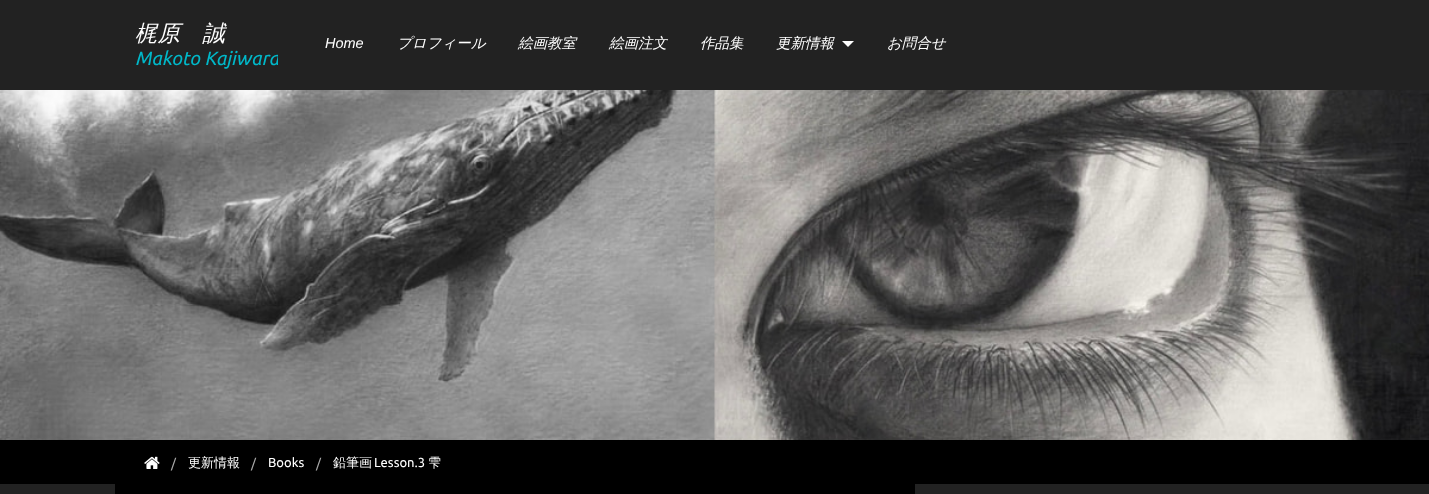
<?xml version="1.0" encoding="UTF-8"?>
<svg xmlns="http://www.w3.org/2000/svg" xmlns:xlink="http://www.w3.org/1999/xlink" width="1429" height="494">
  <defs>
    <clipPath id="clip1"><rect x="135" y="20" width="143" height="50" /></clipPath>
  </defs>
  <rect width="100%" height="100%" fill="#222222" />
  <path d="M 842 41 h 12 l -6 6 z" fill="#ffffff" />
  <image x="0" y="90" width="1429" height="350" xlink:href="image1.png" />
  <rect y="440" width="1429" height="44" fill="#000000" />
  <image x="144" y="456" width="16" height="13" xlink:href="image2.png" />
  <rect x="115" y="484" width="800" height="10" fill="#000000" />
  <text x="135" y="41" style="font-family: WenQuanYi Zen Hei; font-size: 22.5px; font-weight: 500; font-style: italic; fill: #ffffff">梶原　誠</text>
  <g clip-path="url(#clip1)">
    <text x="135" y="65" style="font-family: Ubuntu; font-size: 19.25px; font-style: italic; fill: #00b8c9">Makoto Kajiwara</text>
  </g>
  <text x="325" y="48" style="font-family: Liberation Sans; font-size: 14.5px; font-style: italic; fill: #ffffff">Home</text>
  <text x="397" y="48" style="font-family: WenQuanYi Zen Hei; font-size: 14.5px; font-weight: 500; font-style: italic; fill: #ffffff">プロフィール</text>
  <text x="518" y="48" style="font-family: WenQuanYi Zen Hei; font-size: 14.5px; font-weight: 500; font-style: italic; fill: #ffffff">絵画教室</text>
  <text x="609" y="48" style="font-family: WenQuanYi Zen Hei; font-size: 14.5px; font-weight: 500; font-style: italic; fill: #ffffff">絵画注文</text>
  <text x="700" y="48" style="font-family: WenQuanYi Zen Hei; font-size: 14.5px; font-weight: 500; font-style: italic; fill: #ffffff">作品集</text>
  <text x="776" y="48" style="font-family: WenQuanYi Zen Hei; font-size: 14.5px; font-weight: 500; font-style: italic; fill: #ffffff">更新情報</text>
  <text x="887" y="48" style="font-family: WenQuanYi Zen Hei; font-size: 14.5px; font-weight: 500; font-style: italic; fill: #ffffff">お問合せ</text>
  <text x="171" y="468" style="font-family: Ubuntu; font-size: 13px; fill: #aaaaaa">/</text>
  <text x="188" y="467" style="font-family: WenQuanYi Zen Hei; font-size: 13px; font-weight: 500; fill: #ffffff">更新情報</text>
  <text x="251" y="468" style="font-family: Ubuntu; font-size: 13px; fill: #aaaaaa">/</text>
  <text x="268" y="467" style="font-family: Ubuntu; font-size: 13px; fill: #ffffff">Books</text>
  <text x="316" y="468" style="font-family: Ubuntu; font-size: 13px; fill: #aaaaaa">/</text>
  <text x="333" y="467" style="font-family: WenQuanYi Zen Hei; font-size: 13px; font-weight: 500; fill: #ffffff">鉛筆画</text>
  <text x="374" y="467" style="font-family: Ubuntu; font-size: 13px; fill: #ffffff">Lesson.3</text>
  <text x="428" y="467" style="font-family: WenQuanYi Zen Hei; font-size: 13px; font-weight: 500; fill: #ffffff">雫</text>
</svg>
